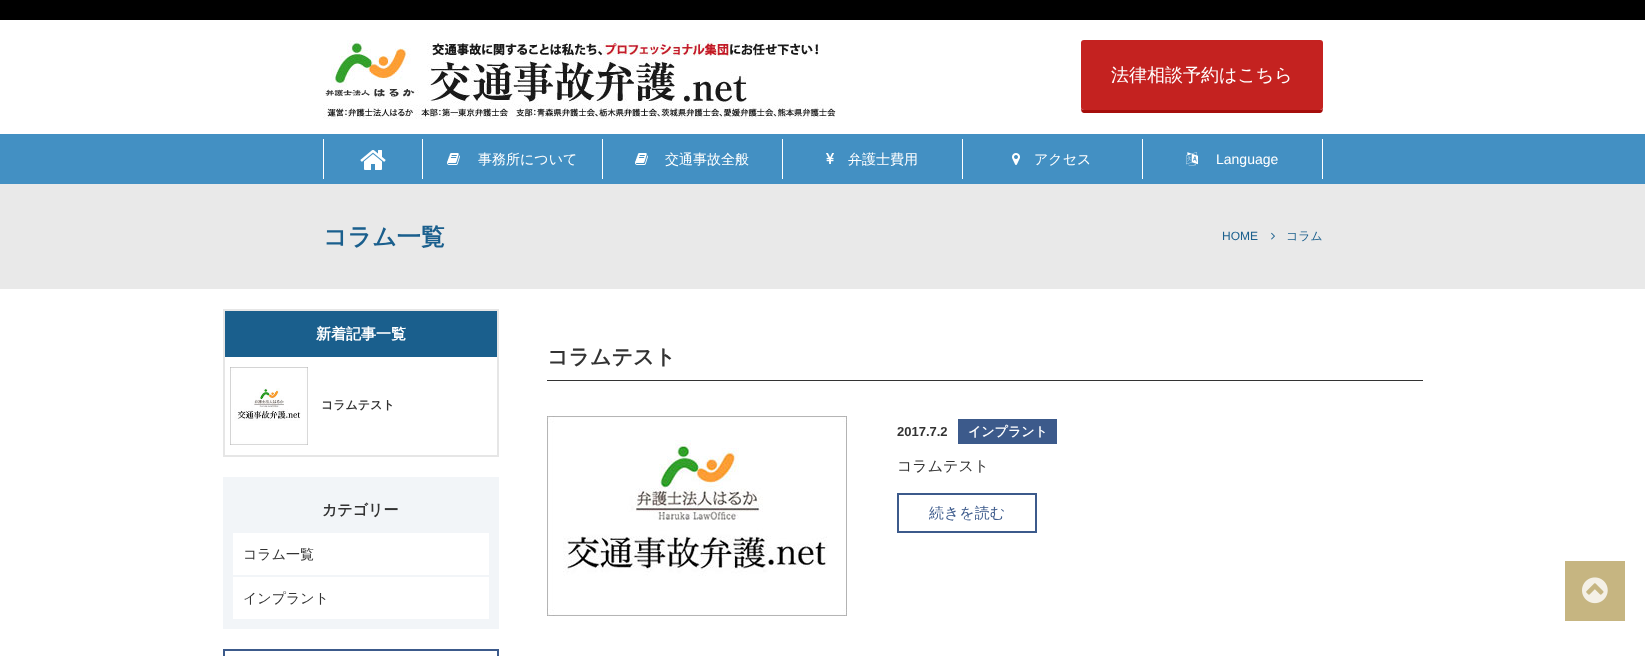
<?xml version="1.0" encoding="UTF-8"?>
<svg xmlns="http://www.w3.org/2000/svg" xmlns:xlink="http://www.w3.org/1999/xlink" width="1645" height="656">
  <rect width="100%" height="100%" fill="#ffffff" />
  <rect width="1645" height="20" fill="#000000" />
  <image x="323" y="40" width="513" height="79" xlink:href="image1.png" />
  <path d="M 1081 107 c 0 2 0 6 3 6 h 236 c 3 0 3 -4 3 -6 c 0 2 -1 3 -3 3 h -236 c -2 0 -3 -1 -3 -3 z" fill="#a60e0c" />
  <rect x="1081" y="40" width="242" height="70" rx="3" fill="#c42220" />
  <rect y="134" width="1645" height="50" fill="#4390c3" />
  <rect x="422" y="139" width="1" height="40" fill="#ffffff" />
  <rect x="323" y="139" width="1" height="40" fill="#ffffff" />
  <image x="360" y="150" width="26" height="20" xlink:href="image2.png" />
  <rect x="602" y="139" width="1" height="40" fill="#ffffff" />
  <image x="447" y="153" width="13" height="12" xlink:href="image3.png" />
  <rect x="782" y="139" width="1" height="40" fill="#ffffff" />
  <image x="635" y="153" width="13" height="12" xlink:href="image3.png" />
  <rect x="962" y="139" width="1" height="40" fill="#ffffff" />
  <image x="826" y="153" width="8" height="11" xlink:href="image4.png" />
  <rect x="1142" y="139" width="1" height="40" fill="#ffffff" />
  <image x="1012" y="153" width="8" height="12" xlink:href="image5.png" />
  <rect x="1322" y="139" width="1" height="40" fill="#ffffff" />
  <image x="1186" y="152" width="12" height="14" xlink:href="image6.png" />
  <rect y="184" width="1645" height="105" fill="#e9e9e9" />
  <image x="1271" y="232" width="4" height="8" xlink:href="image7.png" />
  <rect x="223" y="309" width="276" height="2" fill="#e6e6e6" />
  <rect x="497" y="309" width="2" height="148" fill="#e6e6e6" />
  <rect x="223" y="309" width="2" height="148" fill="#e6e6e6" />
  <rect x="225" y="311" width="272" height="46" fill="#1a5f8d" />
  <rect x="225" y="455" width="272" height="2" fill="#e6e6e6" />
  <image x="230" y="367" width="78" height="78" xlink:href="image8.png" />
  <rect x="228" y="482" width="266" height="142" fill="none" stroke="#f2f5f8" stroke-width="10" />
  <rect x="233" y="487" width="256" height="46" fill="#f2f5f8" />
  <rect x="233" y="575" width="256" height="2" fill="#f2f5f8" />
  <rect x="224" y="650" width="274" height="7" fill="none" stroke="#3c5a8b" stroke-width="2" />
  <rect x="547" y="380" width="876" height="1" fill="#333333" />
  <image x="547" y="416" width="300" height="200" xlink:href="image9.png" />
  <rect x="958" y="419" width="99" height="25" fill="#3c5a8b" />
  <rect x="898" y="494" width="138" height="38" fill="none" stroke="#3c5a8b" stroke-width="2" />
  <rect x="1565" y="561" width="60" height="60" fill="#c6b581" />
  <image x="1582" y="577" width="26" height="27" xlink:href="image10.png" />
  <text x="1111" y="81" style="font-family: WenQuanYi Zen Hei; font-size: 18px; font-weight: 500; fill: #ffffff">法律相談予約はこちら</text>
  <text x="478" y="164" style="font-family: WenQuanYi Zen Hei; font-size: 14px; font-weight: 500; fill: #ffffff">事務所について</text>
  <text x="665" y="164" style="font-family: WenQuanYi Zen Hei; font-size: 14px; font-weight: 500; fill: #ffffff">交通事故全般</text>
  <text x="848" y="164" style="font-family: WenQuanYi Zen Hei; font-size: 14px; font-weight: 500; fill: #ffffff">弁護士費用</text>
  <text x="1034" y="164" style="font-family: WenQuanYi Zen Hei; font-size: 14px; font-weight: 500; fill: #ffffff">アクセス</text>
  <text x="1216" y="164" style="font-family: Liberation Sans; font-size: 14px; fill: #ffffff">Language</text>
  <text x="323" y="245" style="font-family: WenQuanYi Zen Hei; font-size: 24px; font-weight: bold; fill: #1a5f8d">コラム一覧</text>
  <text x="1222" y="240" style="font-family: Liberation Sans; font-size: 12px; fill: #1a5f8d">HOME</text>
  <text x="1286" y="240" style="font-family: WenQuanYi Zen Hei; font-size: 12px; font-weight: 500; fill: #1a5f8d">コラム</text>
  <text x="316" y="339" style="font-family: WenQuanYi Zen Hei; font-size: 15px; font-weight: bold; fill: #ffffff">新着記事一覧</text>
  <text x="321" y="409" style="font-family: WenQuanYi Zen Hei; font-size: 12px; font-weight: bold; fill: #333333">コラムテスト</text>
  <text x="322" y="515" style="font-family: WenQuanYi Zen Hei; font-size: 15px; font-weight: bold; fill: #333333">カテゴリー</text>
  <text x="243" y="559" style="font-family: WenQuanYi Zen Hei; font-size: 14px; font-weight: 500; fill: #333333">コラム一覧</text>
  <text x="243" y="603" style="font-family: WenQuanYi Zen Hei; font-size: 14px; font-weight: 500; fill: #333333">インプラント</text>
  <text x="547" y="364" style="font-family: WenQuanYi Zen Hei; font-size: 21px; font-weight: bold; fill: #333333">コラムテスト</text>
  <text x="897" y="436" style="font-family: Liberation Sans; font-size: 13px; font-weight: bold; fill: #333333">2017.7.2</text>
  <text x="968" y="436" style="font-family: WenQuanYi Zen Hei; font-size: 13px; font-weight: bold; fill: #ffffff">インプラント</text>
  <text x="897" y="471" style="font-family: WenQuanYi Zen Hei; font-size: 15px; font-weight: 500; fill: #333333">コラムテスト</text>
  <text x="929" y="518" style="font-family: WenQuanYi Zen Hei; font-size: 15px; font-weight: 500; fill: #3c5a8b">続きを読む</text>
</svg>
